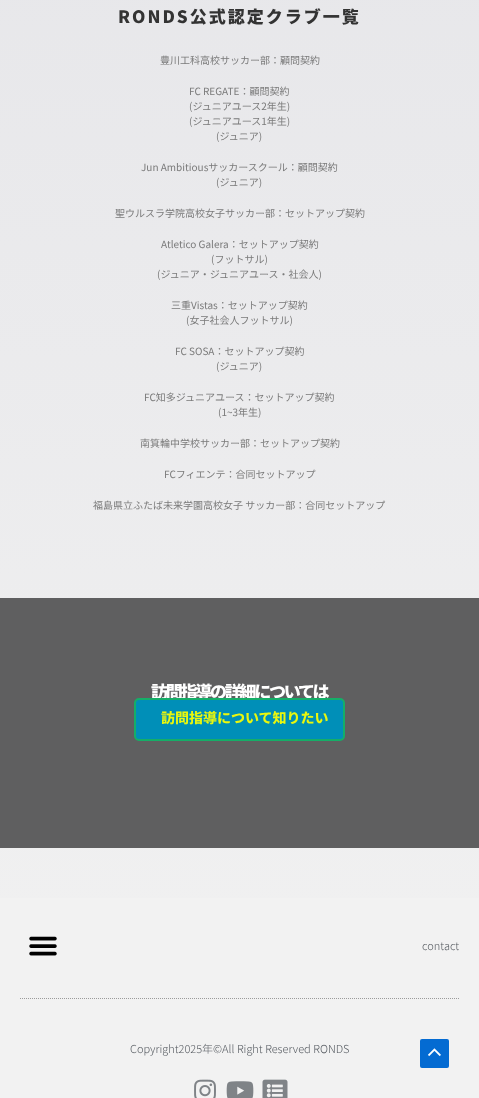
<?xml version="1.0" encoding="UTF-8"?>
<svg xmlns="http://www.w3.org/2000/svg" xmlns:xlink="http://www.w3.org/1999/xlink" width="479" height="1098">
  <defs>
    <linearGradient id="g1" gradientUnits="userSpaceOnUse" x1="239" y1="-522" x2="240" y2="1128"><stop offset="0" stop-color="#e3e3e7" /><stop offset="1" stop-color="#f2f2f2" /></linearGradient>
  </defs>
  <rect width="100%" height="100%" fill="#ffffff" />
  <rect width="479" height="898" fill="url(#g1)" />
  <rect y="598" width="479" height="250" fill="#5f5f60" />
  <rect y="898" width="479" height="200" fill="#f2f2f2" />
  <path d="M 20 998.5 h 439" fill="none" stroke="#9b9b9b" stroke-dasharray="1 1" />
  <image x="29" y="936" width="28" height="20" xlink:href="image1.png" />
  <image x="194" y="1079" width="22" height="19" xlink:href="image2.png" />
  <image x="226" y="1081" width="28" height="17" xlink:href="image3.png" />
  <image x="262" y="1079" width="26" height="19" xlink:href="image4.png" />
  <rect x="420" y="1039" width="29" height="29" rx="2" fill="#046bd2" />
  <image x="428" y="1048" width="13" height="9" xlink:href="image5.png" />
  <text x="118" y="23" style="font-family: Noto Sans JP; font-size: 17px; font-weight: 900; letter-spacing: 2px; fill: #333333">RONDS公式認定クラブ一覧</text>
  <text x="160" y="64" style="font-family: Noto Sans JP; font-size: 10px; fill: #7a7a7a">豊川工科高校サッカー部：顧問契約</text>
  <text x="189" y="95" style="font-family: Noto Sans JP; font-size: 10px; fill: #7a7a7a">FC REGATE：顧問契約</text>
  <text x="189" y="110" style="font-family: Noto Sans JP; font-size: 10px; fill: #7a7a7a">(ジュニアユース2年生)</text>
  <text x="189" y="125" style="font-family: Noto Sans JP; font-size: 10px; fill: #7a7a7a">(ジュニアユース1年生)</text>
  <text x="216" y="140" style="font-family: Noto Sans JP; font-size: 10px; fill: #7a7a7a">(ジュニア)</text>
  <text x="141" y="171" style="font-family: Noto Sans JP; font-size: 10px; fill: #7a7a7a">Jun Ambitiousサッカースクール：顧問契約</text>
  <text x="216" y="186" style="font-family: Noto Sans JP; font-size: 10px; fill: #7a7a7a">(ジュニア)</text>
  <text x="115" y="217" style="font-family: Noto Sans JP; font-size: 10px; fill: #7a7a7a">聖ウルスラ学院高校女子サッカー部：セットアップ契約</text>
  <text x="161" y="248" style="font-family: Noto Sans JP; font-size: 10px; fill: #7a7a7a">Atletico Galera：セットアップ契約</text>
  <text x="211" y="263" style="font-family: Noto Sans JP; font-size: 10px; fill: #7a7a7a">(フットサル)</text>
  <text x="157" y="278" style="font-family: Noto Sans JP; font-size: 10px; fill: #7a7a7a">(ジュニア・ジュニアユース・社会人)</text>
  <text x="171" y="309" style="font-family: Noto Sans JP; font-size: 10px; fill: #7a7a7a">三重Vistas：セットアップ契約</text>
  <text x="186" y="324" style="font-family: Noto Sans JP; font-size: 10px; fill: #7a7a7a">(女子社会人フットサル)</text>
  <text x="175" y="355" style="font-family: Noto Sans JP; font-size: 10px; fill: #7a7a7a">FC SOSA：セットアップ契約</text>
  <text x="216" y="370" style="font-family: Noto Sans JP; font-size: 10px; fill: #7a7a7a">(ジュニア)</text>
  <text x="144" y="401" style="font-family: Noto Sans JP; font-size: 10px; fill: #7a7a7a">FC知多ジュニアユース：セットアップ契約</text>
  <text x="218" y="416" style="font-family: Noto Sans JP; font-size: 10px; fill: #7a7a7a">(1~3年生)</text>
  <text x="140" y="447" style="font-family: Noto Sans JP; font-size: 10px; fill: #7a7a7a">南箕輪中学校サッカー部：セットアップ契約</text>
  <text x="164" y="478" style="font-family: Noto Sans JP; font-size: 10px; fill: #7a7a7a">FCフィエンテ：合同セットアップ</text>
  <text x="93" y="509" style="font-family: Noto Sans JP; font-size: 10px; fill: #7a7a7a">福島県立ふたば未来学園高校女子 サッカー部：合同セットアップ</text>
  <text x="151" y="698" style="font-family: Noto Sans JP; font-size: 17px; font-weight: 900; letter-spacing: -2.25px; fill: #ffffff">訪問指導の詳細については</text>
  <rect x="135" y="699" width="209" height="41" rx="4" fill="#008fb8" stroke="#15ae68" stroke-width="2" />
  <text x="161" y="723" style="font-family: Noto Sans JP; font-size: 14px; font-weight: 800; fill: #e9f70e">訪問指導について知りたい</text>
  <text x="422" y="950" style="font-family: Noto Sans JP; font-size: 11px; font-weight: 300; fill: #54595f">contact</text>
  <text x="130" y="1053" style="font-family: Noto Sans JP; font-size: 11px; font-weight: 300; fill: #54595f">Copyright2025年©︎All Right Reserved RONDS</text>
</svg>
